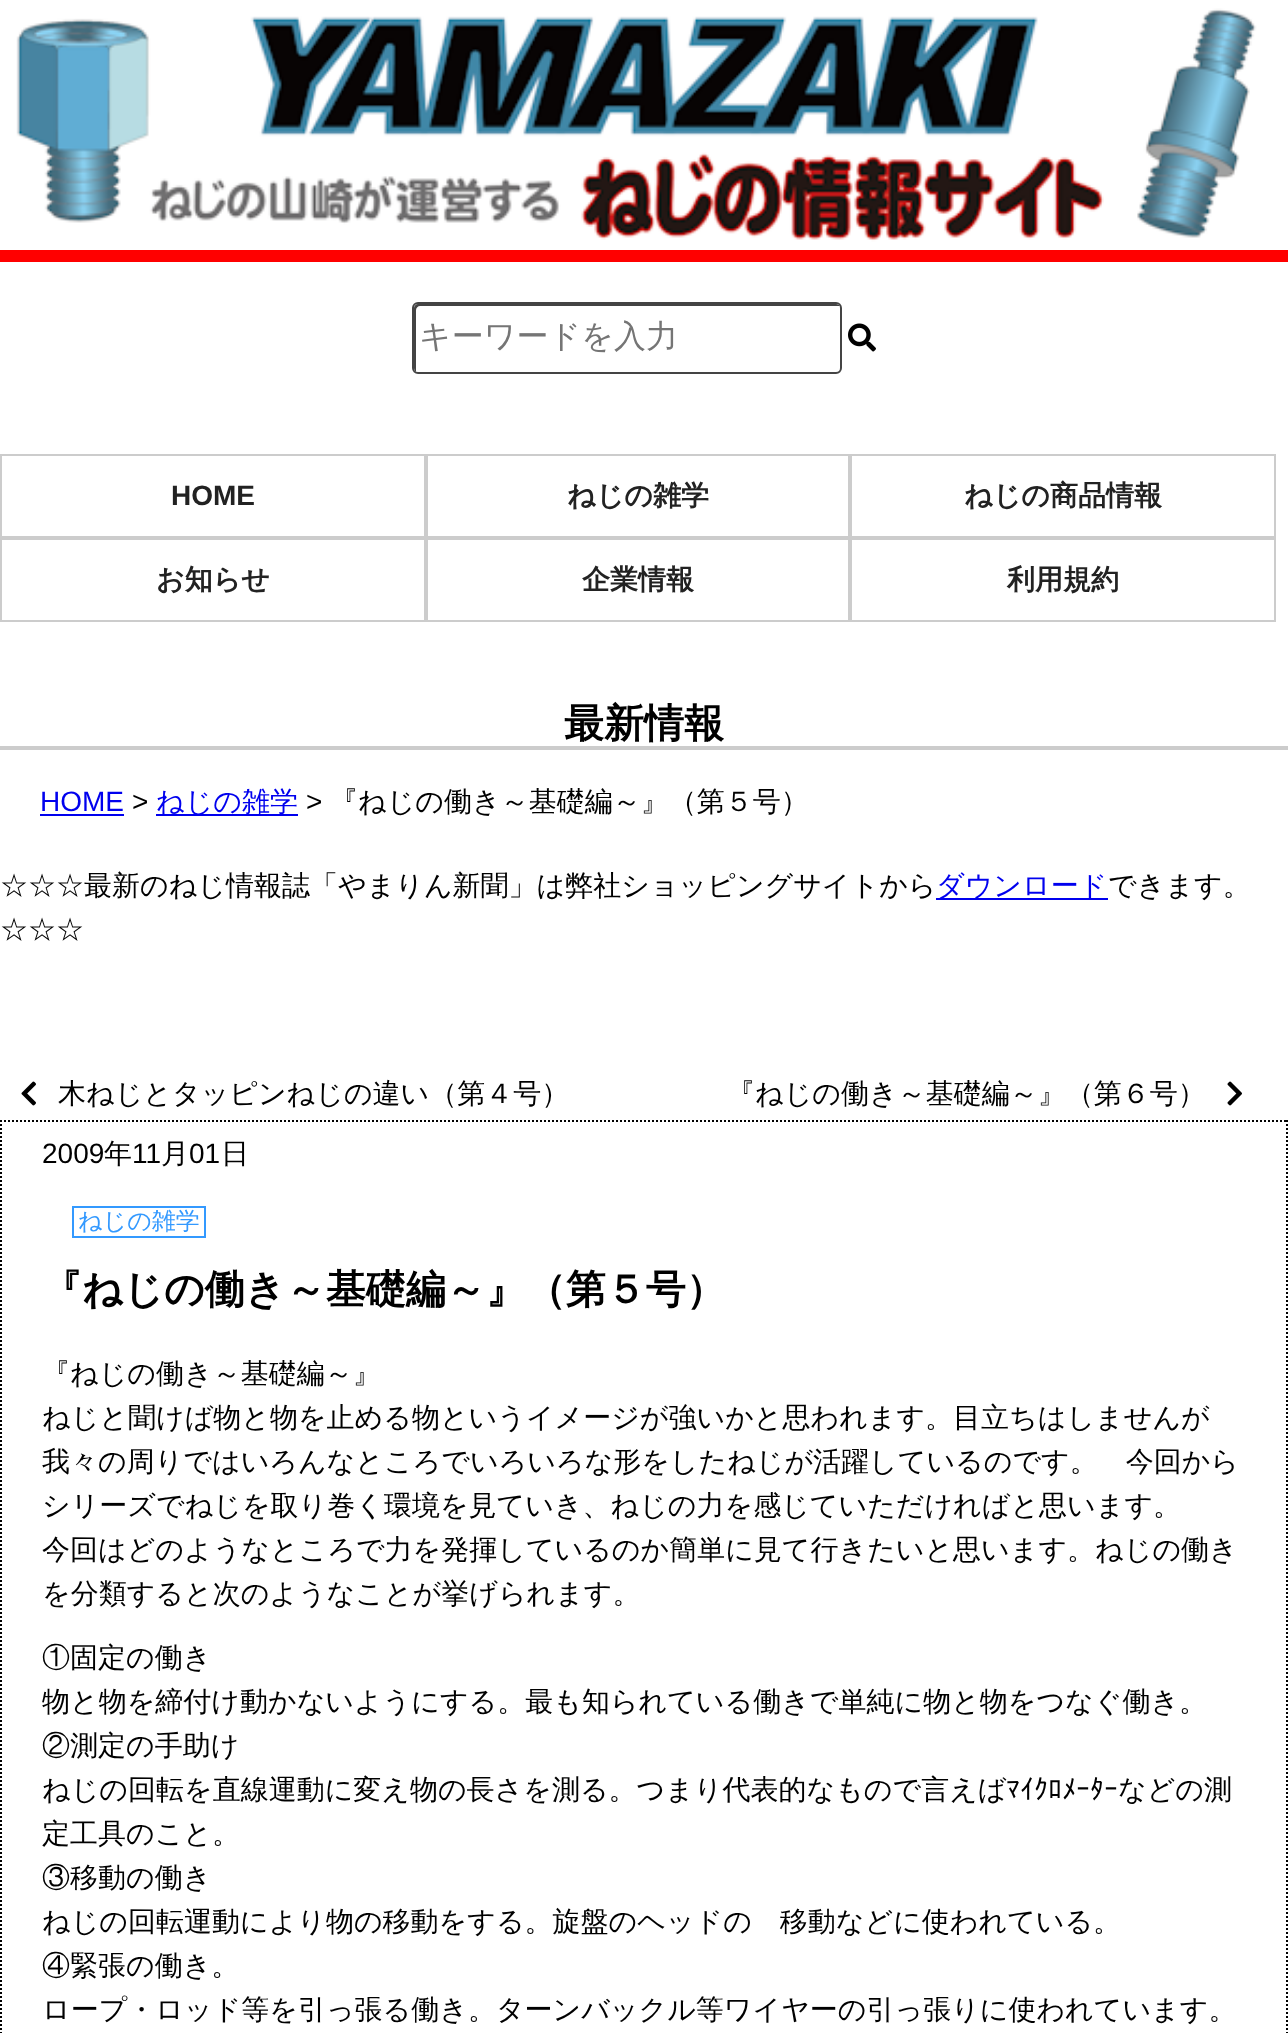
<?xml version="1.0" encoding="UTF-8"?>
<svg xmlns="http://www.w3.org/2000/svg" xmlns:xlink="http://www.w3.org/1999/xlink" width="1288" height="2033">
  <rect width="100%" height="100%" fill="#ffffff" />
  <rect y="250" width="1288" height="12" fill="#ff0000" />
  <image x="0" y="0" width="1288" height="250" xlink:href="image1.png" />
  <path d="M 420 306 h 418 h 2 c -1 -1 -2 -2 -4 -2 h -418 c -2 0 -4 2 -4 4 v 60 c 0 2 1 3 2 4 v -2 v -60 c 0 -2 2 -4 4 -4 z" fill="#444444" />
  <rect x="413" y="303" width="428" height="70" rx="5" fill="none" stroke="#444444" stroke-width="2" />
  <image x="848" y="323" width="28" height="29" xlink:href="image2.png" />
  <rect x="1" y="455" width="424" height="82" fill="none" stroke="#cccccc" stroke-width="2" />
  <rect x="427" y="455" width="422" height="82" fill="none" stroke="#cccccc" stroke-width="2" />
  <rect x="851" y="455" width="424" height="82" fill="none" stroke="#cccccc" stroke-width="2" />
  <rect x="1" y="539" width="424" height="82" fill="none" stroke="#cccccc" stroke-width="2" />
  <rect x="427" y="539" width="422" height="82" fill="none" stroke="#cccccc" stroke-width="2" />
  <rect x="851" y="539" width="424" height="82" fill="none" stroke="#cccccc" stroke-width="2" />
  <rect y="746" width="1288" height="4" fill="#cccccc" />
  <rect x="40" y="814" width="84" height="2" fill="#0000ee" />
  <rect x="156" y="814" width="142" height="2" fill="#0000ee" />
  <rect x="936" y="898" width="172" height="2" fill="#0000ee" />
  <image x="21" y="1081" width="15" height="25" xlink:href="image3.png" />
  <image x="1227" y="1081" width="15" height="25" xlink:href="image4.png" />
  <path d="M 0 1121 h 1288" fill="none" stroke="#000000" stroke-width="2" stroke-dasharray="2 2" />
  <path d="M 1287 1120 v 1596" fill="none" stroke="#000000" stroke-width="2" stroke-dasharray="2 2" />
  <path d="M 1 1120 v 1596" fill="none" stroke="#000000" stroke-width="2" stroke-dasharray="2 2" />
  <rect x="73" y="1207" width="132" height="30" fill="none" stroke="#3399ff" stroke-width="2" />
  <text x="419" y="347" style="font-family: WenQuanYi Zen Hei; font-size: 32px; font-weight: 500; fill: #757575">キーワードを入力</text>
  <text x="171" y="505" style="font-family: Liberation Sans; font-size: 28px; font-weight: bold; fill: #222222">HOME</text>
  <text x="567" y="505" style="font-family: WenQuanYi Zen Hei; font-size: 28px; font-weight: bold; fill: #222222">ねじの雑学</text>
  <text x="964" y="505" style="font-family: WenQuanYi Zen Hei; font-size: 28px; font-weight: bold; fill: #222222">ねじの商品情報</text>
  <text x="156" y="589" style="font-family: WenQuanYi Zen Hei; font-size: 28px; font-weight: bold; fill: #222222">お知らせ</text>
  <text x="582" y="589" style="font-family: WenQuanYi Zen Hei; font-size: 28px; font-weight: bold; fill: #222222">企業情報</text>
  <text x="1007" y="589" style="font-family: WenQuanYi Zen Hei; font-size: 28px; font-weight: bold; fill: #222222">利用規約</text>
  <text x="564" y="737" style="font-family: WenQuanYi Zen Hei; font-size: 40px; font-weight: bold; fill: #000000">最新情報</text>
  <text x="40" y="811" style="font-family: Liberation Sans; font-size: 28px; fill: #0000ee">HOME</text>
  <text x="132" y="811" style="font-family: Liberation Sans; font-size: 28px; fill: #000000">&gt;</text>
  <text x="156" y="811" style="font-family: WenQuanYi Zen Hei; font-size: 28px; font-weight: 500; fill: #0000ee">ねじの雑学</text>
  <text x="306" y="811" style="font-family: Liberation Sans; font-size: 28px; fill: #000000">&gt;</text>
  <text x="330" y="811" style="font-family: WenQuanYi Zen Hei; font-size: 28px; font-weight: 500; fill: #000000">『ねじの働き～基礎編～』（第５号）</text>
  <text x="0" y="895" style="font-family: WenQuanYi Zen Hei; font-size: 28px; font-weight: 500; fill: #000000">☆☆☆最新のねじ情報誌「やまりん新聞」は弊社ショッピングサイトから</text>
  <text x="936" y="895" style="font-family: WenQuanYi Zen Hei; font-size: 28px; font-weight: 500; fill: #0000ee">ダウンロード</text>
  <text x="1108" y="895" style="font-family: WenQuanYi Zen Hei; font-size: 28px; font-weight: 500; fill: #000000">できます。</text>
  <text x="0" y="939" style="font-family: WenQuanYi Zen Hei; font-size: 28px; font-weight: 500; fill: #000000">☆☆☆</text>
  <text x="58" y="1103" style="font-family: WenQuanYi Zen Hei; font-size: 28px; font-weight: 500; fill: #000000">木ねじとタッピンねじの違い（第４号）</text>
  <text x="727" y="1103" style="font-family: WenQuanYi Zen Hei; font-size: 28px; font-weight: 500; fill: #000000">『ねじの働き～基礎編～』（第６号）</text>
  <text x="42" y="1163" style="font-family: Liberation Sans; font-size: 28px; fill: #000000">2009</text>
  <text x="104" y="1163" style="font-family: WenQuanYi Zen Hei; font-size: 28px; font-weight: 500; fill: #000000">年</text>
  <text x="132" y="1163" style="font-family: Liberation Sans; font-size: 28px; fill: #000000">11</text>
  <text x="161" y="1163" style="font-family: WenQuanYi Zen Hei; font-size: 28px; font-weight: 500; fill: #000000">月</text>
  <text x="189" y="1163" style="font-family: Liberation Sans; font-size: 28px; fill: #000000">01</text>
  <text x="221" y="1163" style="font-family: WenQuanYi Zen Hei; font-size: 28px; font-weight: 500; fill: #000000">日</text>
  <text x="78" y="1229" style="font-family: WenQuanYi Zen Hei; font-size: 24px; font-weight: 500; fill: #3399ff">ねじの雑学</text>
  <text x="42" y="1303" style="font-family: WenQuanYi Zen Hei; font-size: 40px; font-weight: bold; fill: #000000">『ねじの働き～基礎編～』（第５号）</text>
  <text x="42" y="1383" style="font-family: WenQuanYi Zen Hei; font-size: 28px; font-weight: 500; fill: #000000">『ねじの働き～基礎編～』</text>
  <text x="42" y="1427" style="font-family: WenQuanYi Zen Hei; font-size: 28px; font-weight: 500; fill: #000000">ねじと聞けば物と物を止める物というイメージが強いかと思われます。目立ちはしませんが</text>
  <text x="42" y="1471" style="font-family: WenQuanYi Zen Hei; font-size: 28px; font-weight: 500; fill: #000000">我々の周りではいろんなところでいろいろな形をしたねじが活躍しているのです。　今回から</text>
  <text x="42" y="1515" style="font-family: WenQuanYi Zen Hei; font-size: 28px; font-weight: 500; fill: #000000">シリーズでねじを取り巻く環境を見ていき、ねじの力を感じていただければと思います。</text>
  <text x="42" y="1559" style="font-family: WenQuanYi Zen Hei; font-size: 28px; font-weight: 500; fill: #000000">今回はどのようなところで力を発揮しているのか簡単に見て行きたいと思います。ねじの働き</text>
  <text x="42" y="1603" style="font-family: WenQuanYi Zen Hei; font-size: 28px; font-weight: 500; fill: #000000">を分類すると次のようなことが挙げられます。</text>
  <text x="42" y="1667" style="font-family: WenQuanYi Zen Hei; font-size: 28px; font-weight: 500; fill: #000000">①固定の働き</text>
  <text x="42" y="1711" style="font-family: WenQuanYi Zen Hei; font-size: 28px; font-weight: 500; fill: #000000">物と物を締付け動かないようにする。最も知られている働きで単純に物と物をつなぐ働き。</text>
  <text x="42" y="1755" style="font-family: WenQuanYi Zen Hei; font-size: 28px; font-weight: 500; fill: #000000">②測定の手助け</text>
  <text x="42" y="1799" style="font-family: WenQuanYi Zen Hei; font-size: 28px; font-weight: 500; fill: #000000">ねじの回転を直線運動に変え物の長さを測る。つまり代表的なもので言えば</text>
  <text x="1006" y="1799" style="font-family: IPAPGothic; font-size: 28px; fill: #000000">ﾏｲｸﾛﾒｰﾀｰ</text>
  <text x="1118" y="1799" style="font-family: WenQuanYi Zen Hei; font-size: 28px; font-weight: 500; fill: #000000">などの測</text>
  <text x="42" y="1843" style="font-family: WenQuanYi Zen Hei; font-size: 28px; font-weight: 500; fill: #000000">定工具のこと。</text>
  <text x="42" y="1887" style="font-family: WenQuanYi Zen Hei; font-size: 28px; font-weight: 500; fill: #000000">③移動の働き</text>
  <text x="42" y="1931" style="font-family: WenQuanYi Zen Hei; font-size: 28px; font-weight: 500; fill: #000000">ねじの回転運動により物の移動をする。旋盤のヘッドの　移動などに使われている。</text>
  <text x="42" y="1975" style="font-family: WenQuanYi Zen Hei; font-size: 28px; font-weight: 500; fill: #000000">④緊張の働き。</text>
  <text x="42" y="2019" style="font-family: WenQuanYi Zen Hei; font-size: 28px; font-weight: 500; fill: #000000">ロープ・ロッド等を引っ張る働き。ターンバックル等ワイヤーの引っ張りに使われています。</text>
</svg>
